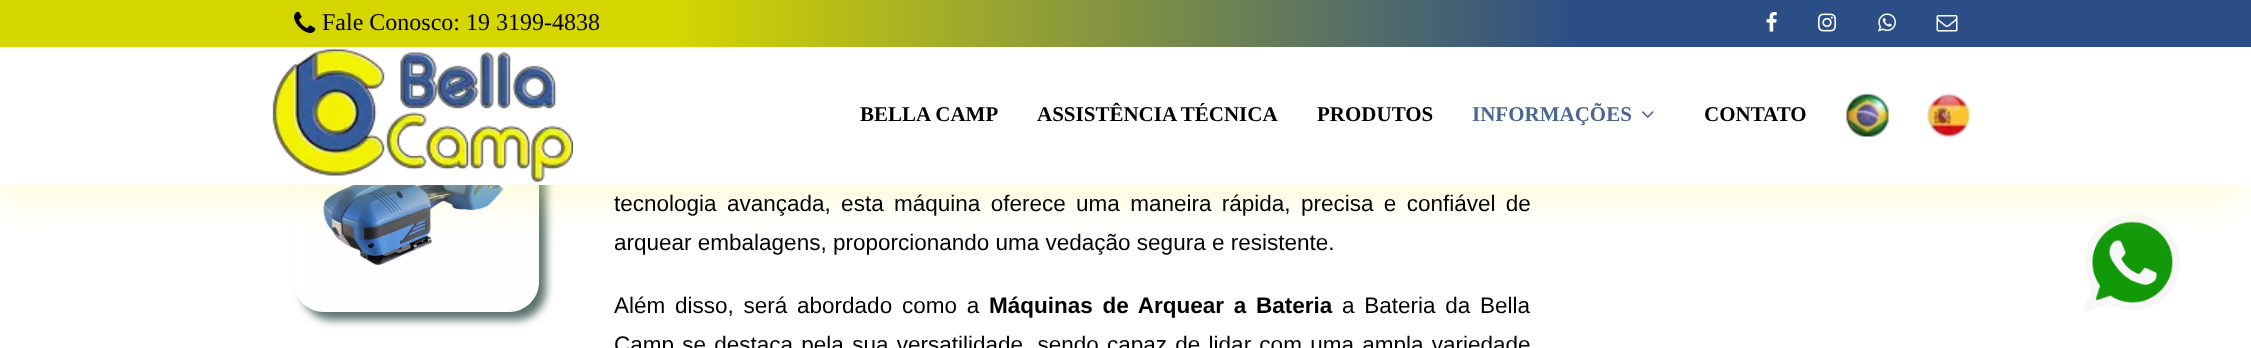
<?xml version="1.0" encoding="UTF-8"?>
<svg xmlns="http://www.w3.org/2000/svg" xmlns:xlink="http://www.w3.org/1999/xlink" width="2251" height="348">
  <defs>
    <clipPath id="clip1"><path d="M 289 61 h 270 v 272 h -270 z m 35 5 h 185 c 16.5 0 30 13.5 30 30 v 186 c 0 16.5 -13.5 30 -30 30 h -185 c -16.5 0 -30 -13.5 -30 -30 v -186 c 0 -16.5 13.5 -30 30 -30 z" clip-rule="evenodd" /></clipPath>
    <linearGradient id="g1" gradientUnits="userSpaceOnUse" x1="0" y1="23" x2="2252" y2="23"><stop offset="0.3" stop-color="#d5d500" /><stop offset="0.7" stop-color="#2c4e87" /></linearGradient>
  </defs>
  <rect width="100%" height="100%" fill="#ffffff" />
  <g clip-path="url(#clip1)">
    <rect x="302" y="74" width="244" height="246" rx="30" fill="#5a726d" filter="blur(4px)" />
  </g>
  <image x="298" y="185" width="241" height="127" xlink:href="image10.png" />
  <image x="2084" y="214" width="96" height="98" xlink:href="image11.png" />
  <rect x="-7" y="8" width="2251" height="184" fill="#fff47d" fill-opacity="0.41" filter="blur(22.5px)" />
  <rect y="47" width="2251" height="138" fill="#ffffff" />
  <rect width="2251" height="47" fill="url(#g1)" />
  <image x="294" y="11" width="22" height="22" xlink:href="image1.png" />
  <image x="1766" y="12" width="11" height="20" xlink:href="image2.png" />
  <image x="1818" y="13" width="18" height="19" xlink:href="image3.png" />
  <image x="1878" y="13" width="18" height="19" xlink:href="image4.png" />
  <image x="1936" y="15" width="22" height="17" xlink:href="image5.png" />
  <image x="272" y="49" width="301" height="133" xlink:href="image6.png" />
  <image x="1642" y="111" width="12" height="7" xlink:href="image7.png" />
  <image x="1846" y="94" width="43" height="43" xlink:href="image8.png" />
  <image x="1927" y="94" width="43" height="43" xlink:href="image9.png" />
  <text x="322" y="30" style="font-family: Liberation Serif; font-size: 24px; fill: #000000">Fale Conosco: 19 3199-4838</text>
  <text x="860" y="121" style="font-family: Liberation Serif; font-size: 21px; font-weight: bold; fill: #000000">BELLA CAMP</text>
  <text x="1037" y="121" style="font-family: Liberation Serif; font-size: 21px; font-weight: bold; fill: #000000">ASSISTÊNCIA TÉCNICA</text>
  <text x="1317" y="121" style="font-family: Liberation Serif; font-size: 21px; font-weight: bold; fill: #000000">PRODUTOS</text>
  <text x="1472" y="121" style="font-family: Liberation Serif; font-size: 21px; font-weight: bold; fill: #4b6691">INFORMAÇÕES</text>
  <text x="1704" y="121" style="font-family: Liberation Serif; font-size: 21px; font-weight: bold; fill: #000000">CONTATO</text>
  <text x="614" y="211" word-spacing="4.1" style="font-family: Liberation Sans; font-size: 22.5px; fill: #000000">tecnologia avançada, esta máquina oferece uma maneira rápida, precisa e confiável de</text>
  <text x="614" y="250" style="font-family: Liberation Sans; font-size: 22.5px; fill: #000000">arquear embalagens, proporcionando uma vedação segura e resistente.</text>
  <text x="614" y="313" word-spacing="3.5" style="font-family: Liberation Sans; font-size: 22.5px; fill: #000000">Além disso, será abordado como a</text>
  <text x="989" y="313" word-spacing="3.5" style="font-family: Liberation Sans; font-size: 22.5px; font-weight: bold; fill: #000000">Máquinas de Arquear a Bateria</text>
  <text x="1342" y="313" word-spacing="3.5" style="font-family: Liberation Sans; font-size: 22.5px; fill: #000000">a Bateria da Bella</text>
  <text x="614" y="352" word-spacing="2" style="font-family: Liberation Sans; font-size: 22.5px; fill: #000000">Camp se destaca pela sua versatilidade, sendo capaz de lidar com uma ampla variedade</text>
</svg>
